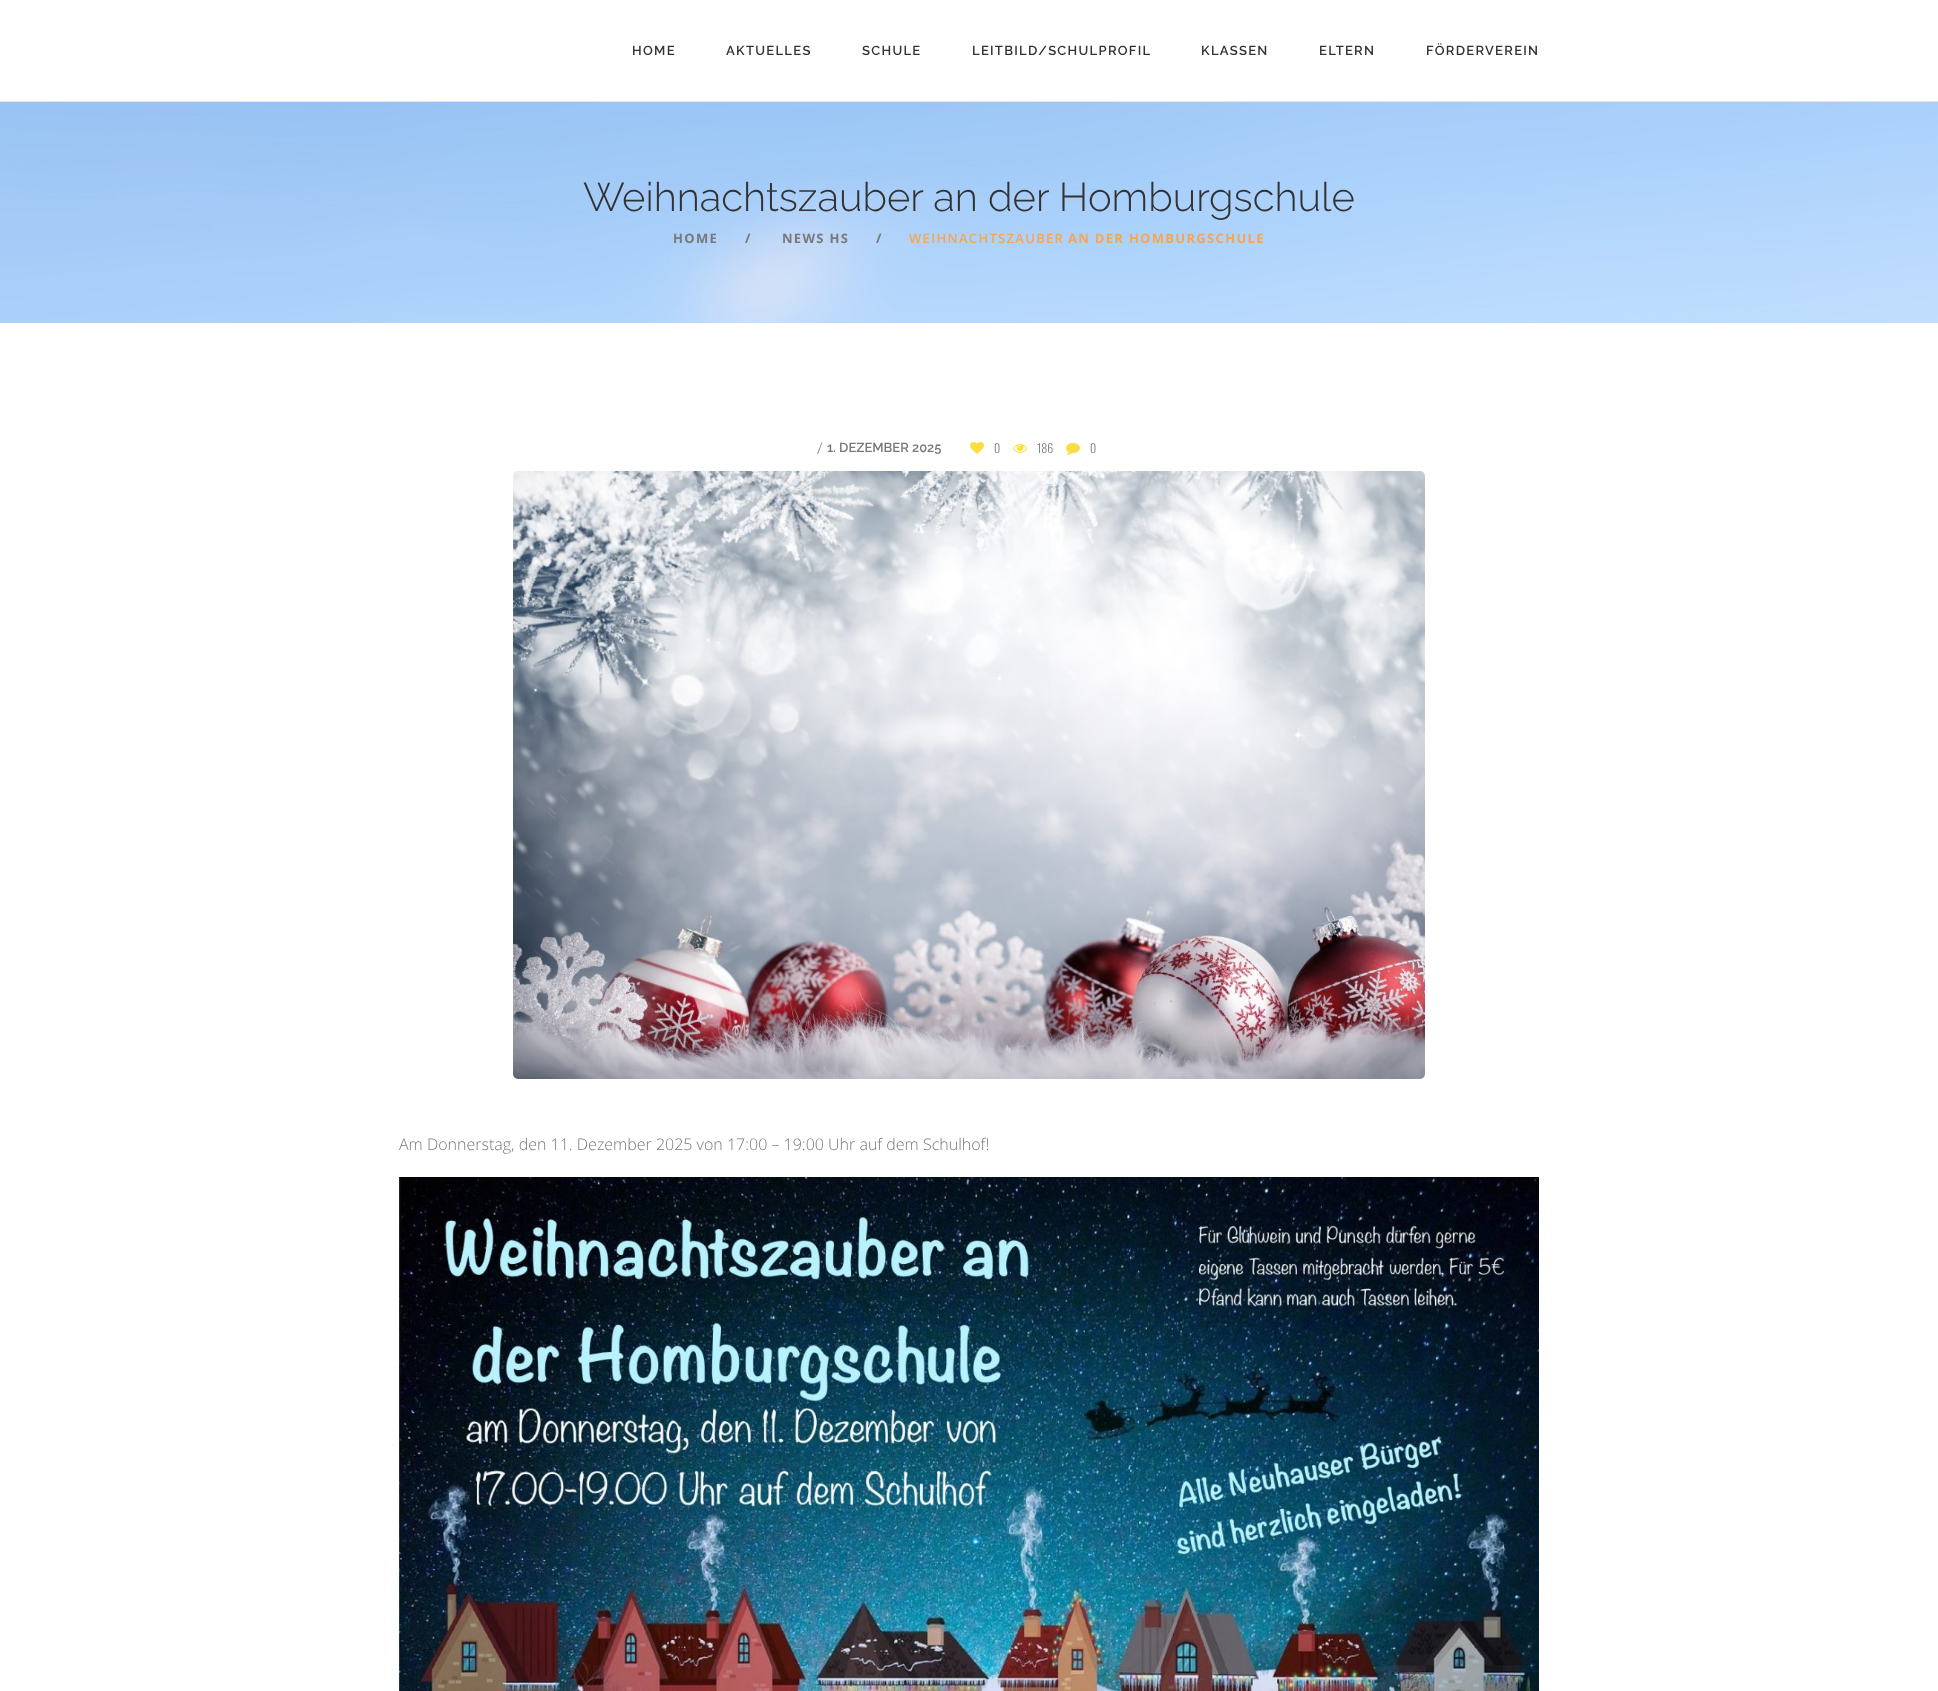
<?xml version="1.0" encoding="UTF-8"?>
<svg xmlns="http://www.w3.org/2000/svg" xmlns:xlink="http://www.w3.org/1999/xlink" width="1938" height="1691">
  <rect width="100%" height="100%" fill="#ffffff" />
  <rect y="101" width="1938" height="1" fill="#e5e5e5" />
  <image x="0" y="102" width="1938" height="221" xlink:href="image1.png" />
  <image x="970" y="442" width="14" height="12" xlink:href="image2.png" />
  <image x="1013" y="444" width="14" height="9" xlink:href="image3.png" />
  <image x="1066" y="443" width="14" height="12" xlink:href="image4.png" />
  <image x="513" y="471" width="912" height="608" xlink:href="image5.png" />
  <image x="399" y="1177" width="1140" height="514" xlink:href="image6.png" />
  <text x="632" y="55" style="font-family: Raleway; font-size: 13px; font-weight: 600; letter-spacing: 1.3px; fill: #323232">HOME</text>
  <text x="726" y="55" style="font-family: Raleway; font-size: 13px; font-weight: 600; letter-spacing: 1.3px; fill: #323232">AKTUELLES</text>
  <text x="862" y="55" style="font-family: Raleway; font-size: 13px; font-weight: 600; letter-spacing: 1.3px; fill: #323232">SCHULE</text>
  <text x="972" y="55" style="font-family: Raleway; font-size: 13px; font-weight: 600; letter-spacing: 1.3px; fill: #323232">LEITBILD/SCHULPROFIL</text>
  <text x="1201" y="55" style="font-family: Raleway; font-size: 13px; font-weight: 600; letter-spacing: 1.3px; fill: #323232">KLASSEN</text>
  <text x="1319" y="55" style="font-family: Raleway; font-size: 13px; font-weight: 600; letter-spacing: 1.3px; fill: #323232">ELTERN</text>
  <text x="1426" y="55" style="font-family: Raleway; font-size: 13px; font-weight: 600; letter-spacing: 1.3px; fill: #323232">FÖRDERVEREIN</text>
  <text x="583" y="211" style="font-family: Raleway; font-size: 40px; font-weight: 300; fill: #323232">Weihnachtszauber an der Homburgschule</text>
  <text x="673" y="243" style="font-family: Open Sans; font-size: 13px; font-weight: bold; letter-spacing: 1.3px; fill: #787878">HOME</text>
  <text x="745" y="243" style="font-family: Open Sans; font-size: 13px; font-weight: bold; letter-spacing: 1.3px; fill: #787878">/</text>
  <text x="782" y="243" style="font-family: Open Sans; font-size: 13px; font-weight: bold; letter-spacing: 1.3px; fill: #787878">NEWS HS</text>
  <text x="876" y="243" style="font-family: Open Sans; font-size: 13px; font-weight: bold; letter-spacing: 1.3px; fill: #787878">/</text>
  <text x="909" y="243" style="font-family: Open Sans; font-size: 13px; font-weight: 600; letter-spacing: 1.3px; fill: #f9a450">WEIHNACHTSZAUBER</text>
  <text x="1068" y="243" style="font-family: Open Sans; font-size: 13px; font-weight: bold; letter-spacing: 1.3px; fill: #f9a450">AN DER HOMBURGSCHULE</text>
  <text x="817" y="454" style="font-family: Open Sans; font-size: 16px; font-weight: 300; fill: #787878">/</text>
  <text x="827" y="452" style="font-family: Raleway; font-size: 13px; font-weight: 600; fill: #787878">1. DEZEMBER 2025</text>
  <text x="994" y="453" style="font-family: Oswald; font-size: 12px; font-weight: 300; fill: #787878">0</text>
  <text x="1037" y="453" style="font-family: Oswald; font-size: 12px; font-weight: 300; fill: #787878">186</text>
  <text x="1090" y="453" style="font-family: Oswald; font-size: 12px; font-weight: 300; fill: #787878">0</text>
  <text x="399" y="1150" style="font-family: Open Sans; font-size: 16px; font-weight: 300; fill: #787878">Am Donnerstag, den 11. Dezember 2025 von 17:00 – 19:00 Uhr auf dem Schulhof!</text>
</svg>
